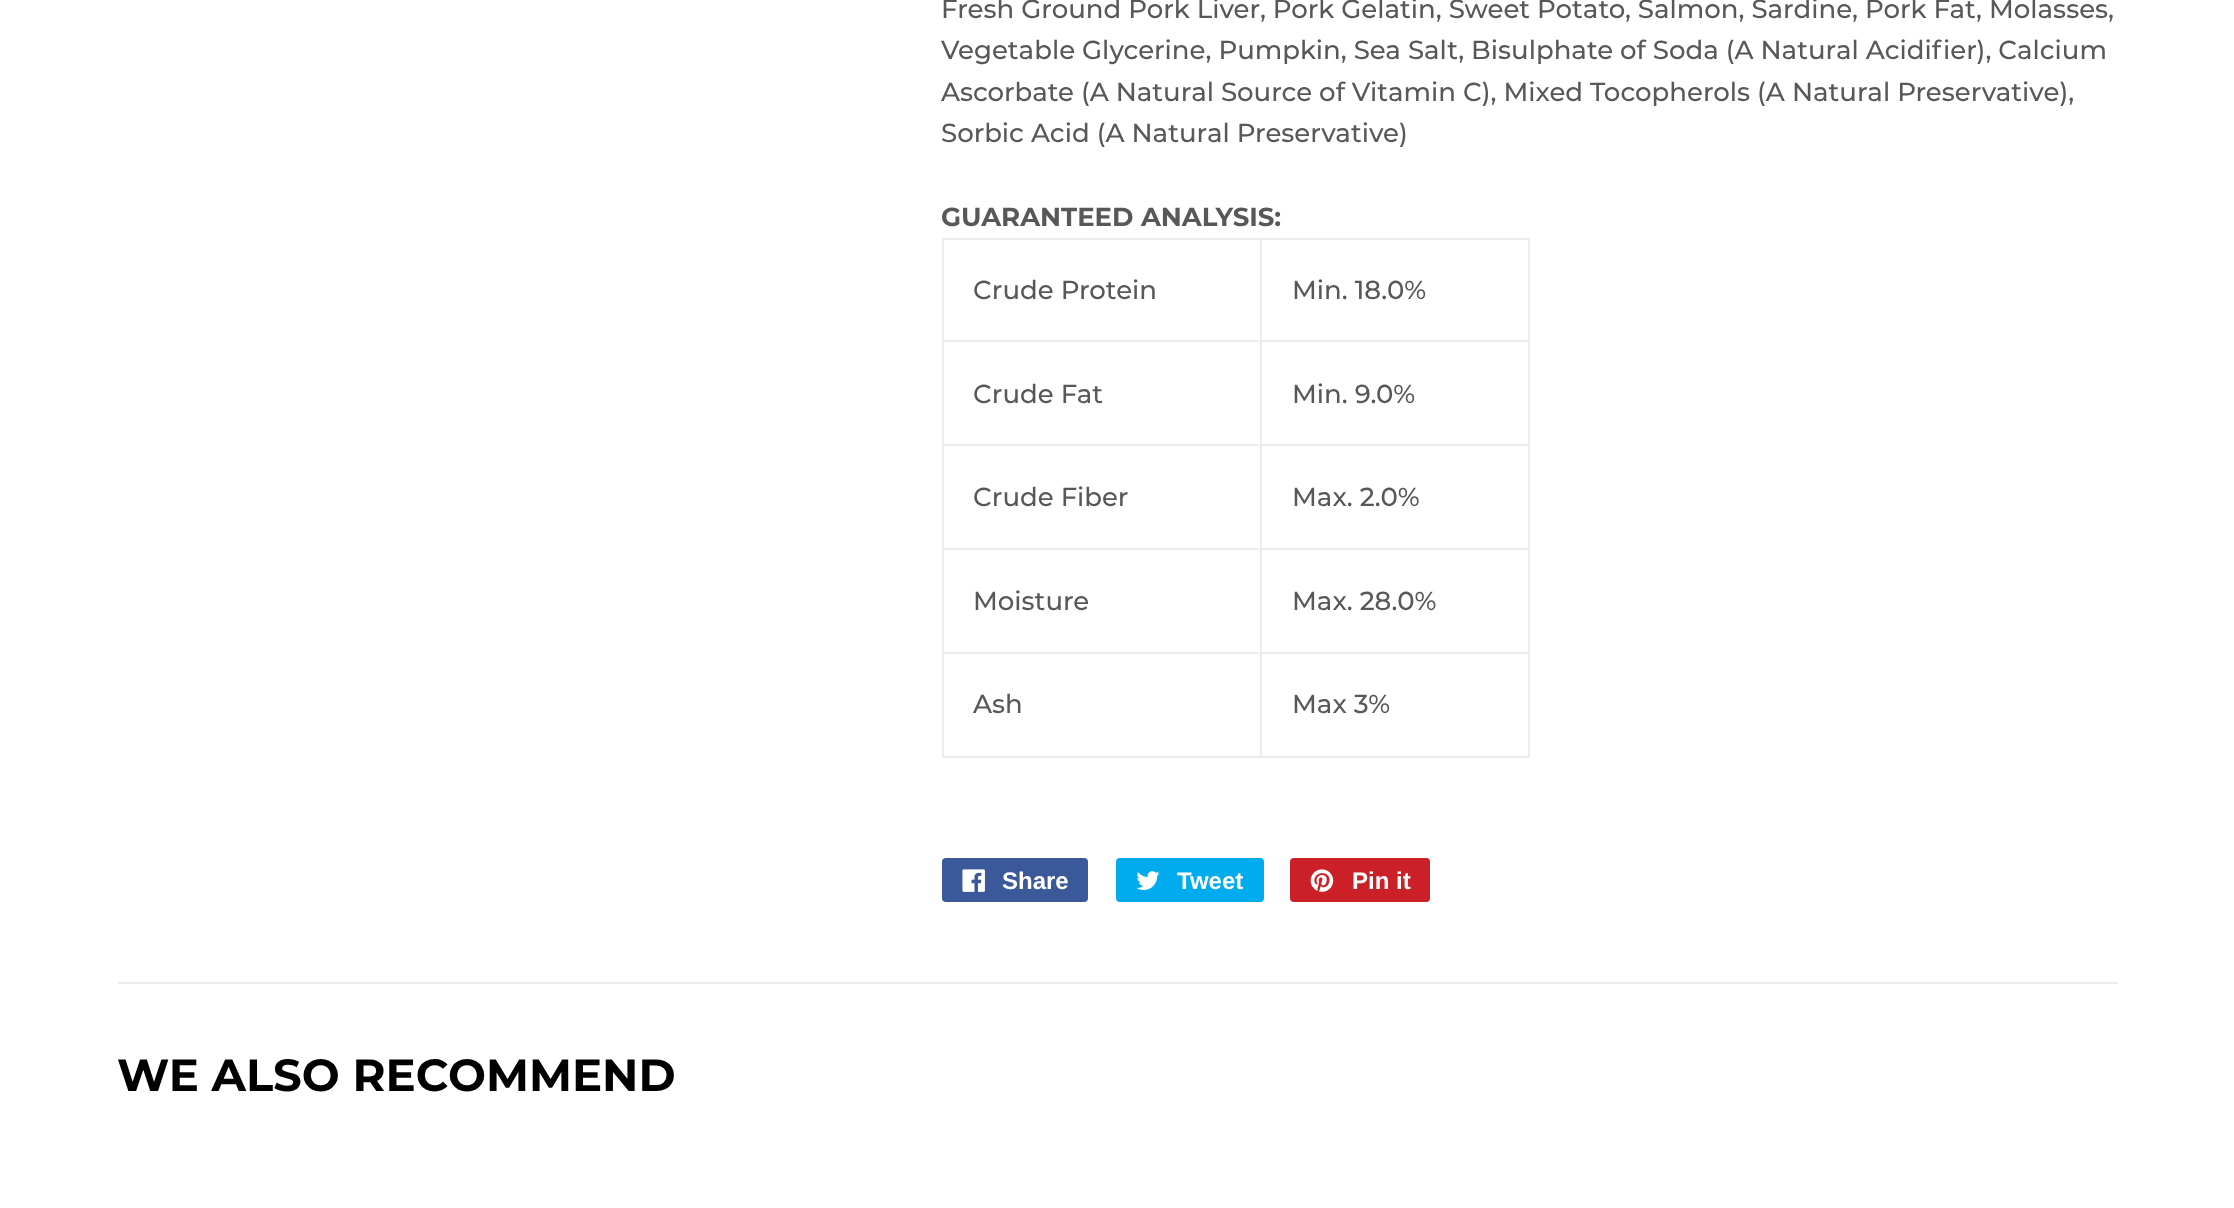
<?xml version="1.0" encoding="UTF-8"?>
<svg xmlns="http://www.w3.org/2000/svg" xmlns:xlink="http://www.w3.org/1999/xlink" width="2234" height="1208">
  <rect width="100%" height="100%" fill="#ffffff" />
  <rect x="1260" y="238" width="270" height="2" fill="#ececec" />
  <rect x="1260" y="340" width="270" height="2" fill="#ececec" />
  <rect x="1260" y="444" width="270" height="2" fill="#ececec" />
  <rect x="1260" y="548" width="270" height="2" fill="#ececec" />
  <rect x="1260" y="652" width="270" height="2" fill="#ececec" />
  <rect x="1528" y="652" width="2" height="106" fill="#ececec" />
  <rect x="1260" y="756" width="270" height="2" fill="#ececec" />
  <rect x="1260" y="652" width="2" height="106" fill="#ececec" />
  <rect x="942" y="652" width="320" height="2" fill="#ececec" />
  <rect x="1260" y="548" width="2" height="106" fill="#ececec" />
  <rect x="942" y="548" width="320" height="2" fill="#ececec" />
  <rect x="1260" y="444" width="2" height="106" fill="#ececec" />
  <rect x="942" y="444" width="320" height="2" fill="#ececec" />
  <rect x="1260" y="340" width="2" height="106" fill="#ececec" />
  <rect x="942" y="340" width="320" height="2" fill="#ececec" />
  <rect x="1260" y="238" width="2" height="104" fill="#ececec" />
  <rect x="942" y="238" width="320" height="2" fill="#ececec" />
  <rect x="942" y="756" width="320" height="2" fill="#ececec" />
  <rect x="942" y="652" width="2" height="106" fill="#ececec" />
  <rect x="942" y="548" width="2" height="106" fill="#ececec" />
  <rect x="942" y="444" width="2" height="106" fill="#ececec" />
  <rect x="942" y="340" width="2" height="106" fill="#ececec" />
  <rect x="942" y="238" width="2" height="104" fill="#ececec" />
  <rect x="1528" y="548" width="2" height="106" fill="#ececec" />
  <rect x="1528" y="444" width="2" height="106" fill="#ececec" />
  <rect x="1528" y="340" width="2" height="106" fill="#ececec" />
  <rect x="1528" y="238" width="2" height="104" fill="#ececec" />
  <rect x="942" y="858" width="146" height="44" rx="4" fill="#3b5998" />
  <image x="962" y="869" width="23" height="23" xlink:href="image1.png" />
  <rect x="1116" y="858" width="148" height="44" rx="4" fill="#00aced" />
  <image x="1136" y="871" width="24" height="19" xlink:href="image2.png" />
  <rect x="1290" y="858" width="140" height="44" rx="4" fill="#cb2027" />
  <image x="1310" y="869" width="24" height="23" xlink:href="image3.png" />
  <rect x="118" y="982" width="2000" height="2" fill="#ececec" />
  <text x="941" y="18" style="font-family: Montserrat; font-size: 26px; font-weight: 500; fill: #585858">Fresh Ground Pork Liver, Pork Gelatin, Sweet Potato, Salmon, Sardine, Pork Fat, Molasses,</text>
  <text x="941" y="59" style="font-family: Montserrat; font-size: 26px; font-weight: 500; fill: #585858">Vegetable Glycerine, Pumpkin, Sea Salt, Bisulphate of Soda (A Natural Acidifier), Calcium</text>
  <text x="941" y="101" style="font-family: Montserrat; font-size: 26px; font-weight: 500; fill: #585858">Ascorbate (A Natural Source of Vitamin C), Mixed Tocopherols (A Natural Preservative),</text>
  <text x="941" y="142" style="font-family: Montserrat; font-size: 26px; font-weight: 500; fill: #585858">Sorbic Acid (A Natural Preservative)</text>
  <text x="941" y="226" style="font-family: Montserrat; font-size: 26px; font-weight: bold; fill: #585858">GUARANTEED ANALYSIS:</text>
  <text x="973" y="299" style="font-family: Montserrat; font-size: 26px; font-weight: 500; fill: #585858">Crude Protein</text>
  <text x="1292" y="299" style="font-family: Montserrat; font-size: 26px; font-weight: 500; fill: #585858">Min. 18.0%</text>
  <text x="973" y="403" style="font-family: Montserrat; font-size: 26px; font-weight: 500; fill: #585858">Crude Fat</text>
  <text x="1292" y="403" style="font-family: Montserrat; font-size: 26px; font-weight: 500; fill: #585858">Min. 9.0%</text>
  <text x="973" y="506" style="font-family: Montserrat; font-size: 26px; font-weight: 500; fill: #585858">Crude Fiber</text>
  <text x="1292" y="506" style="font-family: Montserrat; font-size: 26px; font-weight: 500; fill: #585858">Max. 2.0%</text>
  <text x="973" y="610" style="font-family: Montserrat; font-size: 26px; font-weight: 500; fill: #585858">Moisture</text>
  <text x="1292" y="610" style="font-family: Montserrat; font-size: 26px; font-weight: 500; fill: #585858">Max. 28.0%</text>
  <text x="973" y="713" style="font-family: Montserrat; font-size: 26px; font-weight: 500; fill: #585858">Ash</text>
  <text x="1292" y="713" style="font-family: Montserrat; font-size: 26px; font-weight: 500; fill: #585858">Max 3%</text>
  <text x="1002" y="889" style="font-family: Liberation Sans; font-size: 24px; font-weight: bold; fill: #ffffff">Share</text>
  <text x="1177" y="889" style="font-family: Liberation Sans; font-size: 24px; font-weight: bold; fill: #ffffff">Tweet</text>
  <text x="1352" y="889" style="font-family: Liberation Sans; font-size: 24px; font-weight: bold; fill: #ffffff">Pin it</text>
  <text x="117" y="1091" style="font-family: Montserrat; font-size: 45px; font-weight: bold; fill: #000000">WE ALSO RECOMMEND</text>
</svg>
